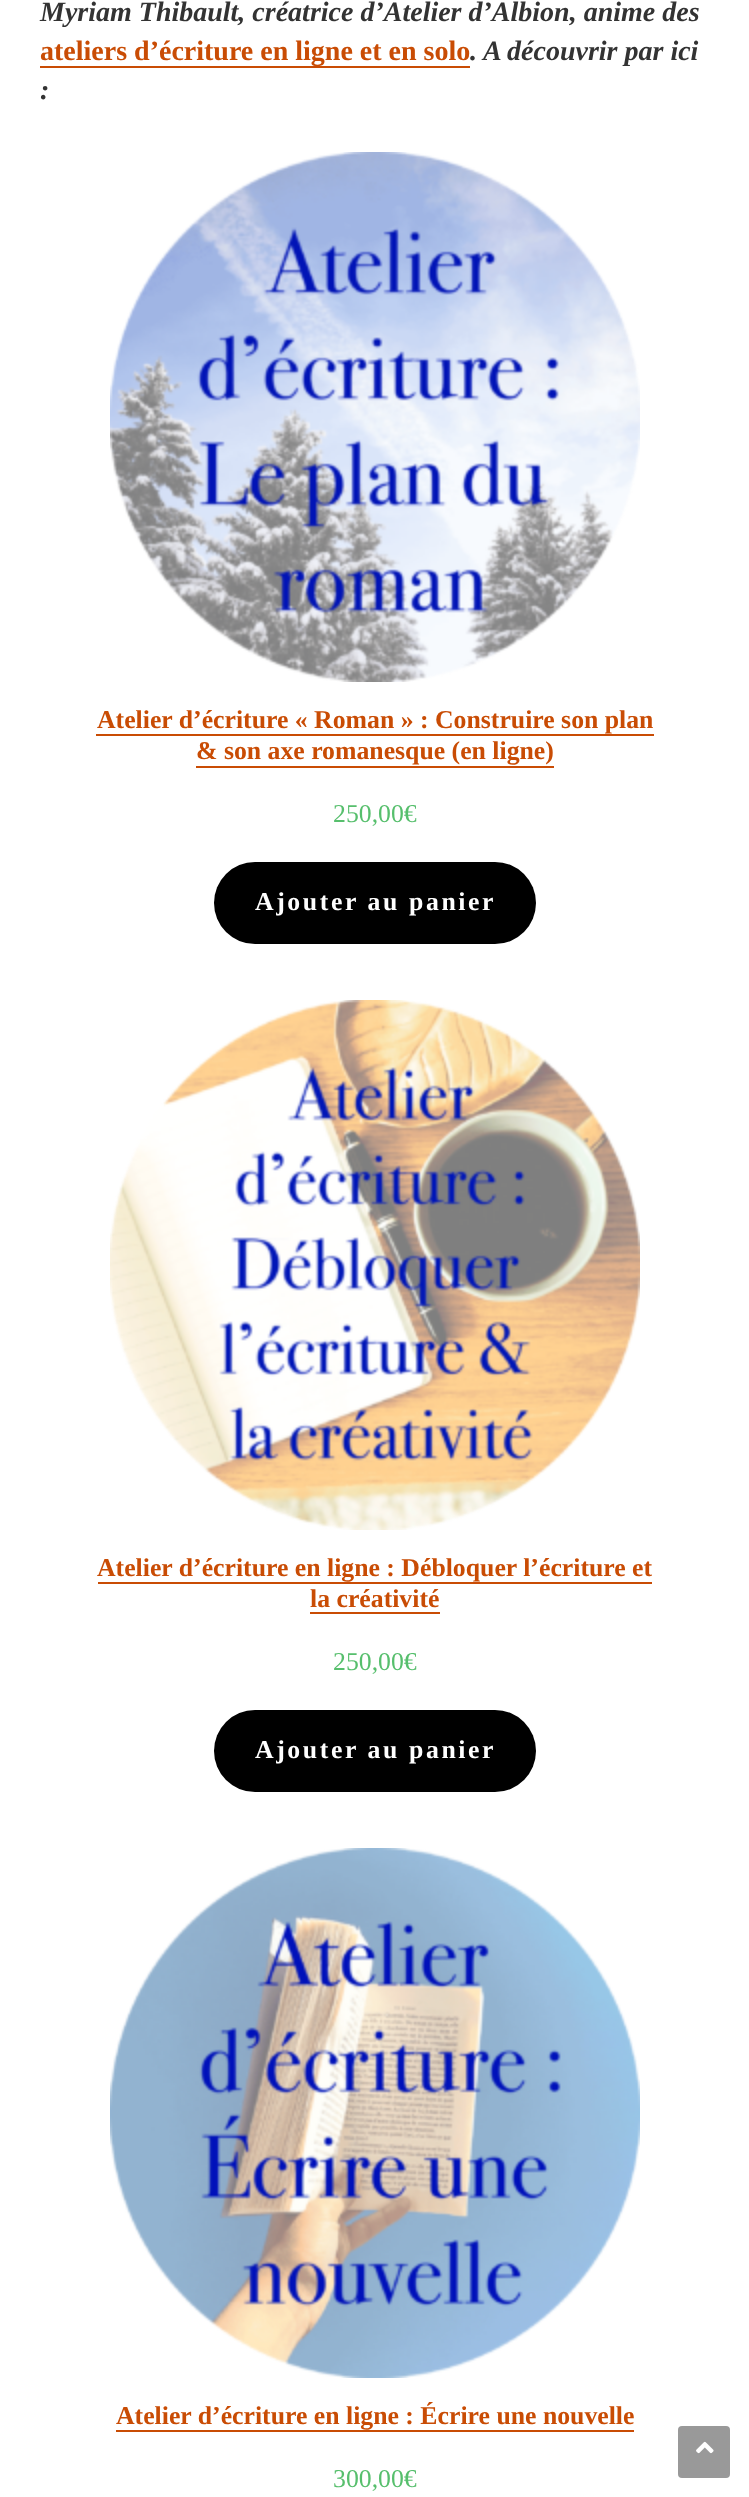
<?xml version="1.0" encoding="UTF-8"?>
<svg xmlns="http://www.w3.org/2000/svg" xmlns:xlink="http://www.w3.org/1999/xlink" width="749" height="2497">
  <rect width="100%" height="100%" fill="#ffffff" />
  <rect x="40" y="66" width="430" height="2" fill="#c94c04" />
  <image x="110" y="152" width="530" height="530" xlink:href="image1.png" />
  <rect x="96" y="734" width="558" height="2" fill="#c94c04" />
  <rect x="196" y="766" width="358" height="2" fill="#c94c04" />
  <rect x="214" y="862" width="322" height="82" rx="41" fill="#000000" />
  <image x="110" y="1000" width="530" height="530" xlink:href="image2.png" />
  <rect x="98" y="1582" width="554" height="2" fill="#c94c04" />
  <rect x="310" y="1612" width="130" height="2" fill="#c94c04" />
  <rect x="214" y="1710" width="322" height="82" rx="41" fill="#000000" />
  <image x="110" y="1848" width="530" height="530" xlink:href="image3.png" />
  <rect x="116" y="2430" width="518" height="2" fill="#c94c04" />
  <rect x="678" y="2426" width="52" height="52" rx="4" fill="#999999" />
  <image x="696" y="2441" width="18" height="13" xlink:href="image4.png" />
  <text x="40" y="21" style="font-family: Liberation Serif; font-size: 28px; font-weight: bold; font-style: italic; fill: #333333">Myriam Thibault, créatrice d’Atelier d’Albion, anime des</text>
  <text x="40" y="60" style="font-family: Liberation Serif; font-size: 28px; font-weight: bold; fill: #c94c04">ateliers d’écriture en ligne et en solo</text>
  <text x="470" y="60" style="font-family: Liberation Serif; font-size: 28px; font-weight: bold; font-style: italic; fill: #333333">. A découvrir par ici</text>
  <text x="40" y="99" style="font-family: Liberation Serif; font-size: 28px; font-weight: bold; font-style: italic; fill: #333333">:</text>
  <text x="97" y="728" style="font-family: Liberation Serif; font-size: 25.75px; font-weight: bold; fill: #c94c04">Atelier d’écriture « Roman » : Construire son plan</text>
  <text x="196" y="759" style="font-family: Liberation Serif; font-size: 25.75px; font-weight: bold; fill: #c94c04">&amp; son axe romanesque (en ligne)</text>
  <text x="333" y="822" style="font-family: Liberation Serif; font-size: 25.75px; fill: #57bf6d">250,00€</text>
  <text x="255" y="910" style="font-family: Liberation Serif; font-size: 25.75px; font-weight: bold; letter-spacing: 2.6px; fill: #ffffff">Ajouter au panier</text>
  <text x="97" y="1576" style="font-family: Liberation Serif; font-size: 25.75px; font-weight: bold; fill: #c94c04">Atelier d’écriture en ligne : Débloquer l’écriture et</text>
  <text x="310" y="1607" style="font-family: Liberation Serif; font-size: 25.75px; font-weight: bold; fill: #c94c04">la créativité</text>
  <text x="333" y="1670" style="font-family: Liberation Serif; font-size: 25.75px; fill: #57bf6d">250,00€</text>
  <text x="255" y="1758" style="font-family: Liberation Serif; font-size: 25.75px; font-weight: bold; letter-spacing: 2.6px; fill: #ffffff">Ajouter au panier</text>
  <text x="116" y="2424" style="font-family: Liberation Serif; font-size: 25.75px; font-weight: bold; fill: #c94c04">Atelier d’écriture en ligne : Écrire une nouvelle</text>
  <text x="333" y="2487" style="font-family: Liberation Serif; font-size: 25.75px; fill: #57bf6d">300,00€</text>
</svg>
